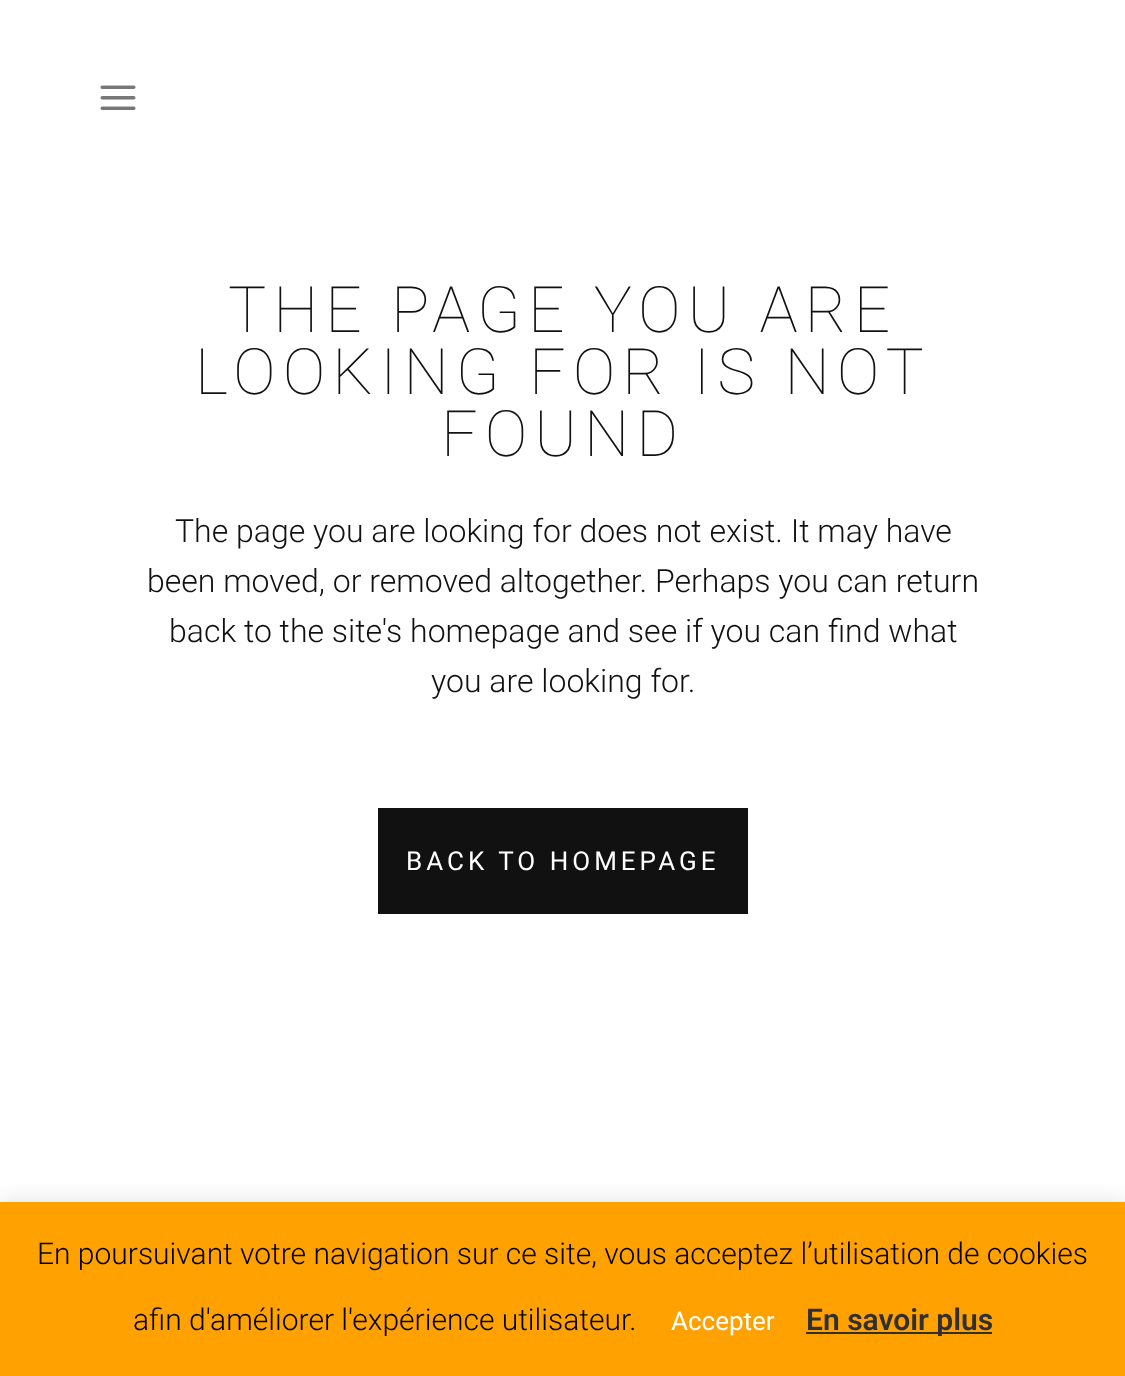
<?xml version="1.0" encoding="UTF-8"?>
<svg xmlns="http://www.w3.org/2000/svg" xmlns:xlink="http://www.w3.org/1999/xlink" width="1125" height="1376">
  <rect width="100%" height="100%" fill="#ffffff" />
  <image x="100" y="85" width="36" height="25" xlink:href="image1.png" />
  <rect x="378" y="808" width="370" height="106" fill="#111111" />
  <rect y="1200" width="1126" height="174" fill="#acabab" fill-opacity="0.3" filter="blur(10px)" />
  <rect y="1202" width="1125" height="174" fill="#ffa100" />
  <rect x="806" y="1332" width="186" height="2" fill="#303030" />
  <text x="228" y="332" style="font-family: Roboto; font-size: 64px; font-weight: 100; letter-spacing: 7px; fill: #111111">THE PAGE YOU ARE</text>
  <text x="195" y="394" style="font-family: Roboto; font-size: 64px; font-weight: 100; letter-spacing: 7px; fill: #111111">LOOKING FOR IS NOT</text>
  <text x="441" y="456" style="font-family: Roboto; font-size: 64px; font-weight: 100; letter-spacing: 7px; fill: #111111">FOUND</text>
  <text x="175" y="542" style="font-family: Roboto; font-size: 32px; font-weight: 300; fill: #111111">The page you are looking for does not exist. It may have</text>
  <text x="147" y="592" style="font-family: Roboto; font-size: 32px; font-weight: 300; fill: #111111">been moved, or removed altogether. Perhaps you can return</text>
  <text x="169" y="642" style="font-family: Roboto; font-size: 32px; font-weight: 300; fill: #111111">back to the site's homepage and see if you can find what</text>
  <text x="431" y="692" style="font-family: Roboto; font-size: 32px; font-weight: 300; fill: #111111">you are looking for.</text>
  <text x="406" y="870" style="font-family: Roboto; font-size: 26px; letter-spacing: 4px; fill: #ffffff">BACK TO HOMEPAGE</text>
  <text x="37" y="1264" style="font-family: Roboto; font-size: 30px; font-weight: 300; fill: #000000">En poursuivant votre navigation sur ce site, vous acceptez l’utilisation de cookies</text>
  <text x="133" y="1330" style="font-family: Roboto; font-size: 30px; font-weight: 300; fill: #000000">afin d'améliorer l'expérience utilisateur.</text>
  <text x="671" y="1330" style="font-family: Roboto; font-size: 26px; fill: #ffffff">Accepter</text>
  <text x="806" y="1330" style="font-family: Roboto; font-size: 30px; font-weight: 600; fill: #303030">En savoir plus</text>
</svg>
